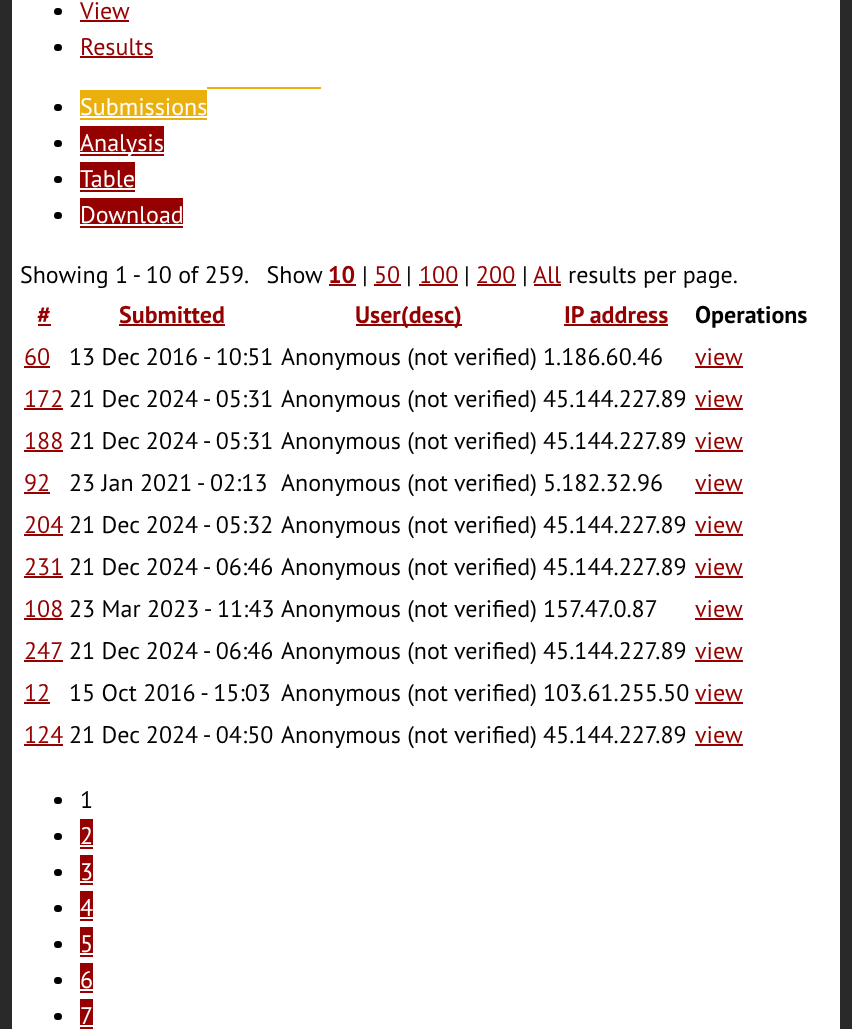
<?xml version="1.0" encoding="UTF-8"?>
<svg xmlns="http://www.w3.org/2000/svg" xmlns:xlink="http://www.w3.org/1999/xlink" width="852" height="1029">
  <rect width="100%" height="100%" fill="#292929" />
  <rect x="12" width="828" height="1029" fill="#ffffff" />
  <rect x="54" y="8" width="8" height="7" rx="3.5" fill="#000000" />
  <rect x="80" y="20" width="49" height="2" fill="#950000" />
  <rect x="54" y="44" width="8" height="7" rx="3.5" fill="#000000" />
  <rect x="80" y="56" width="73" height="2" fill="#950000" />
  <rect x="54" y="104" width="8" height="7" rx="3.5" fill="#000000" />
  <rect x="80" y="90" width="127" height="30" fill="#ebb00e" />
  <rect x="207" y="87" width="114" height="2" fill="#ebb00e" />
  <rect x="80" y="116" width="127" height="2" fill="#ffffff" />
  <rect x="54" y="140" width="8" height="7" rx="3.5" fill="#000000" />
  <rect x="80" y="126" width="84" height="30" fill="#950000" />
  <rect x="80" y="152" width="84" height="2" fill="#ffffff" />
  <rect x="54" y="176" width="8" height="7" rx="3.5" fill="#000000" />
  <rect x="80" y="162" width="55" height="30" fill="#950000" />
  <rect x="80" y="188" width="55" height="2" fill="#ffffff" />
  <rect x="54" y="212" width="8" height="7" rx="3.5" fill="#000000" />
  <rect x="80" y="198" width="103" height="30" fill="#950000" />
  <rect x="80" y="224" width="103" height="2" fill="#ffffff" />
  <rect x="329" y="284" width="27" height="2" fill="#950000" />
  <rect x="374" y="284" width="27" height="2" fill="#950000" />
  <rect x="419" y="284" width="39" height="2" fill="#950000" />
  <rect x="477" y="284" width="39" height="2" fill="#950000" />
  <rect x="534" y="284" width="27" height="2" fill="#950000" />
  <rect x="38" y="324" width="13" height="2" fill="#950000" />
  <rect x="119" y="324" width="106" height="2" fill="#950000" />
  <rect x="356" y="324" width="106" height="2" fill="#950000" />
  <rect x="564" y="324" width="104" height="2" fill="#950000" />
  <rect x="24" y="366" width="26" height="2" fill="#950000" />
  <rect x="695" y="366" width="48" height="2" fill="#950000" />
  <rect x="24" y="408" width="39" height="2" fill="#950000" />
  <rect x="695" y="408" width="48" height="2" fill="#950000" />
  <rect x="24" y="450" width="39" height="2" fill="#950000" />
  <rect x="695" y="450" width="48" height="2" fill="#950000" />
  <rect x="24" y="492" width="26" height="2" fill="#950000" />
  <rect x="695" y="492" width="48" height="2" fill="#950000" />
  <rect x="24" y="534" width="39" height="2" fill="#950000" />
  <rect x="695" y="534" width="48" height="2" fill="#950000" />
  <rect x="24" y="576" width="39" height="2" fill="#950000" />
  <rect x="695" y="576" width="48" height="2" fill="#950000" />
  <rect x="24" y="618" width="39" height="2" fill="#950000" />
  <rect x="695" y="618" width="48" height="2" fill="#950000" />
  <rect x="24" y="660" width="39" height="2" fill="#950000" />
  <rect x="695" y="660" width="48" height="2" fill="#950000" />
  <rect x="24" y="702" width="26" height="2" fill="#950000" />
  <rect x="695" y="702" width="48" height="2" fill="#950000" />
  <rect x="24" y="744" width="39" height="2" fill="#950000" />
  <rect x="695" y="744" width="48" height="2" fill="#950000" />
  <rect x="54" y="797" width="8" height="7" rx="3.5" fill="#000000" />
  <rect x="54" y="833" width="8" height="7" rx="3.5" fill="#000000" />
  <rect x="80" y="819" width="13" height="30" fill="#950000" />
  <rect x="80" y="845" width="13" height="2" fill="#ffffff" />
  <rect x="54" y="869" width="8" height="7" rx="3.5" fill="#000000" />
  <rect x="80" y="855" width="13" height="30" fill="#950000" />
  <rect x="80" y="881" width="13" height="2" fill="#ffffff" />
  <rect x="54" y="905" width="8" height="7" rx="3.5" fill="#000000" />
  <rect x="80" y="891" width="13" height="30" fill="#950000" />
  <rect x="80" y="917" width="13" height="2" fill="#ffffff" />
  <rect x="54" y="941" width="8" height="7" rx="3.5" fill="#000000" />
  <rect x="80" y="927" width="13" height="30" fill="#950000" />
  <rect x="80" y="953" width="13" height="2" fill="#ffffff" />
  <rect x="54" y="977" width="8" height="7" rx="3.5" fill="#000000" />
  <rect x="80" y="963" width="13" height="30" fill="#950000" />
  <rect x="80" y="989" width="13" height="2" fill="#ffffff" />
  <rect x="54" y="1013" width="8" height="7" rx="3.5" fill="#000000" />
  <rect x="80" y="999" width="13" height="30" fill="#950000" />
  <rect x="80" y="1025" width="13" height="2" fill="#ffffff" />
  <text x="80" y="19" style="font-family: PT Sans; font-size: 24px; fill: #950000">View</text>
  <text x="80" y="55" style="font-family: PT Sans; font-size: 24px; fill: #950000">Results</text>
  <text x="80" y="115" style="font-family: PT Sans; font-size: 24px; fill: #ffffff">Submissions</text>
  <text x="80" y="151" style="font-family: PT Sans; font-size: 24px; fill: #ffffff">Analysis</text>
  <text x="80" y="187" style="font-family: PT Sans; font-size: 24px; fill: #ffffff">Table</text>
  <text x="80" y="223" style="font-family: PT Sans; font-size: 24px; fill: #ffffff">Download</text>
  <text x="20" y="283" style="font-family: PT Sans; font-size: 24px; fill: #000000" xml:space="preserve">Showing 1 - 10 of 259.   Show</text>
  <text x="328" y="283" style="font-family: PT Sans; font-size: 24px; font-weight: bold; fill: #950000">10</text>
  <text x="362" y="283" style="font-family: PT Sans; font-size: 24px; fill: #000000">|</text>
  <text x="374" y="283" style="font-family: PT Sans; font-size: 24px; fill: #950000">50</text>
  <text x="406" y="283" style="font-family: PT Sans; font-size: 24px; fill: #000000">|</text>
  <text x="419" y="283" style="font-family: PT Sans; font-size: 24px; fill: #950000">100</text>
  <text x="464" y="283" style="font-family: PT Sans; font-size: 24px; fill: #000000">|</text>
  <text x="476" y="283" style="font-family: PT Sans; font-size: 24px; fill: #950000">200</text>
  <text x="522" y="283" style="font-family: PT Sans; font-size: 24px; fill: #000000">|</text>
  <text x="533" y="283" style="font-family: PT Sans; font-size: 24px; fill: #950000">All</text>
  <text x="568" y="283" style="font-family: PT Sans; font-size: 24px; fill: #000000">results per page.</text>
  <text x="37" y="323" style="font-family: PT Sans; font-size: 24px; font-weight: bold; fill: #950000">#</text>
  <text x="119" y="323" style="font-family: PT Sans; font-size: 24px; font-weight: bold; fill: #950000">Submitted</text>
  <text x="355" y="323" style="font-family: PT Sans; font-size: 24px; font-weight: bold; fill: #950000">User(desc)</text>
  <text x="564" y="323" style="font-family: PT Sans; font-size: 24px; font-weight: bold; fill: #950000">IP address</text>
  <text x="695" y="323" style="font-family: PT Sans; font-size: 24px; font-weight: bold; fill: #000000">Operations</text>
  <text x="24" y="365" style="font-family: PT Sans; font-size: 24px; fill: #950000">60</text>
  <text x="69" y="365" style="font-family: PT Sans; font-size: 24px; fill: #000000">13 Dec 2016 - 10:51</text>
  <text x="281" y="365" style="font-family: PT Sans; font-size: 24px; fill: #000000">Anonymous (not verified)</text>
  <text x="543" y="365" style="font-family: PT Sans; font-size: 24px; fill: #000000">1.186.60.46</text>
  <text x="695" y="365" style="font-family: PT Sans; font-size: 24px; fill: #950000">view</text>
  <text x="24" y="407" style="font-family: PT Sans; font-size: 24px; fill: #950000">172</text>
  <text x="69" y="407" style="font-family: PT Sans; font-size: 24px; fill: #000000">21 Dec 2024 - 05:31</text>
  <text x="281" y="407" style="font-family: PT Sans; font-size: 24px; fill: #000000">Anonymous (not verified)</text>
  <text x="543" y="407" style="font-family: PT Sans; font-size: 24px; fill: #000000">45.144.227.89</text>
  <text x="695" y="407" style="font-family: PT Sans; font-size: 24px; fill: #950000">view</text>
  <text x="24" y="449" style="font-family: PT Sans; font-size: 24px; fill: #950000">188</text>
  <text x="69" y="449" style="font-family: PT Sans; font-size: 24px; fill: #000000">21 Dec 2024 - 05:31</text>
  <text x="281" y="449" style="font-family: PT Sans; font-size: 24px; fill: #000000">Anonymous (not verified)</text>
  <text x="543" y="449" style="font-family: PT Sans; font-size: 24px; fill: #000000">45.144.227.89</text>
  <text x="695" y="449" style="font-family: PT Sans; font-size: 24px; fill: #950000">view</text>
  <text x="24" y="491" style="font-family: PT Sans; font-size: 24px; fill: #950000">92</text>
  <text x="69" y="491" style="font-family: PT Sans; font-size: 24px; fill: #000000">23 Jan 2021 - 02:13</text>
  <text x="281" y="491" style="font-family: PT Sans; font-size: 24px; fill: #000000">Anonymous (not verified)</text>
  <text x="543" y="491" style="font-family: PT Sans; font-size: 24px; fill: #000000">5.182.32.96</text>
  <text x="695" y="491" style="font-family: PT Sans; font-size: 24px; fill: #950000">view</text>
  <text x="24" y="533" style="font-family: PT Sans; font-size: 24px; fill: #950000">204</text>
  <text x="69" y="533" style="font-family: PT Sans; font-size: 24px; fill: #000000">21 Dec 2024 - 05:32</text>
  <text x="281" y="533" style="font-family: PT Sans; font-size: 24px; fill: #000000">Anonymous (not verified)</text>
  <text x="543" y="533" style="font-family: PT Sans; font-size: 24px; fill: #000000">45.144.227.89</text>
  <text x="695" y="533" style="font-family: PT Sans; font-size: 24px; fill: #950000">view</text>
  <text x="24" y="575" style="font-family: PT Sans; font-size: 24px; fill: #950000">231</text>
  <text x="69" y="575" style="font-family: PT Sans; font-size: 24px; fill: #000000">21 Dec 2024 - 06:46</text>
  <text x="281" y="575" style="font-family: PT Sans; font-size: 24px; fill: #000000">Anonymous (not verified)</text>
  <text x="543" y="575" style="font-family: PT Sans; font-size: 24px; fill: #000000">45.144.227.89</text>
  <text x="695" y="575" style="font-family: PT Sans; font-size: 24px; fill: #950000">view</text>
  <text x="24" y="617" style="font-family: PT Sans; font-size: 24px; fill: #950000">108</text>
  <text x="69" y="617" style="font-family: PT Sans; font-size: 24px; fill: #000000">23 Mar 2023 - 11:43</text>
  <text x="281" y="617" style="font-family: PT Sans; font-size: 24px; fill: #000000">Anonymous (not verified)</text>
  <text x="543" y="617" style="font-family: PT Sans; font-size: 24px; fill: #000000">157.47.0.87</text>
  <text x="695" y="617" style="font-family: PT Sans; font-size: 24px; fill: #950000">view</text>
  <text x="24" y="659" style="font-family: PT Sans; font-size: 24px; fill: #950000">247</text>
  <text x="69" y="659" style="font-family: PT Sans; font-size: 24px; fill: #000000">21 Dec 2024 - 06:46</text>
  <text x="281" y="659" style="font-family: PT Sans; font-size: 24px; fill: #000000">Anonymous (not verified)</text>
  <text x="543" y="659" style="font-family: PT Sans; font-size: 24px; fill: #000000">45.144.227.89</text>
  <text x="695" y="659" style="font-family: PT Sans; font-size: 24px; fill: #950000">view</text>
  <text x="24" y="701" style="font-family: PT Sans; font-size: 24px; fill: #950000">12</text>
  <text x="69" y="701" style="font-family: PT Sans; font-size: 24px; fill: #000000">15 Oct 2016 - 15:03</text>
  <text x="281" y="701" style="font-family: PT Sans; font-size: 24px; fill: #000000">Anonymous (not verified)</text>
  <text x="543" y="701" style="font-family: PT Sans; font-size: 24px; fill: #000000">103.61.255.50</text>
  <text x="695" y="701" style="font-family: PT Sans; font-size: 24px; fill: #950000">view</text>
  <text x="24" y="743" style="font-family: PT Sans; font-size: 24px; fill: #950000">124</text>
  <text x="69" y="743" style="font-family: PT Sans; font-size: 24px; fill: #000000">21 Dec 2024 - 04:50</text>
  <text x="281" y="743" style="font-family: PT Sans; font-size: 24px; fill: #000000">Anonymous (not verified)</text>
  <text x="543" y="743" style="font-family: PT Sans; font-size: 24px; fill: #000000">45.144.227.89</text>
  <text x="695" y="743" style="font-family: PT Sans; font-size: 24px; fill: #950000">view</text>
  <text x="80" y="808" style="font-family: PT Sans; font-size: 24px; fill: #000000">1</text>
  <text x="80" y="844" style="font-family: PT Sans; font-size: 24px; fill: #ffffff">2</text>
  <text x="80" y="880" style="font-family: PT Sans; font-size: 24px; fill: #ffffff">3</text>
  <text x="80" y="916" style="font-family: PT Sans; font-size: 24px; fill: #ffffff">4</text>
  <text x="80" y="952" style="font-family: PT Sans; font-size: 24px; fill: #ffffff">5</text>
  <text x="80" y="988" style="font-family: PT Sans; font-size: 24px; fill: #ffffff">6</text>
  <text x="80" y="1024" style="font-family: PT Sans; font-size: 24px; fill: #ffffff">7</text>
</svg>
